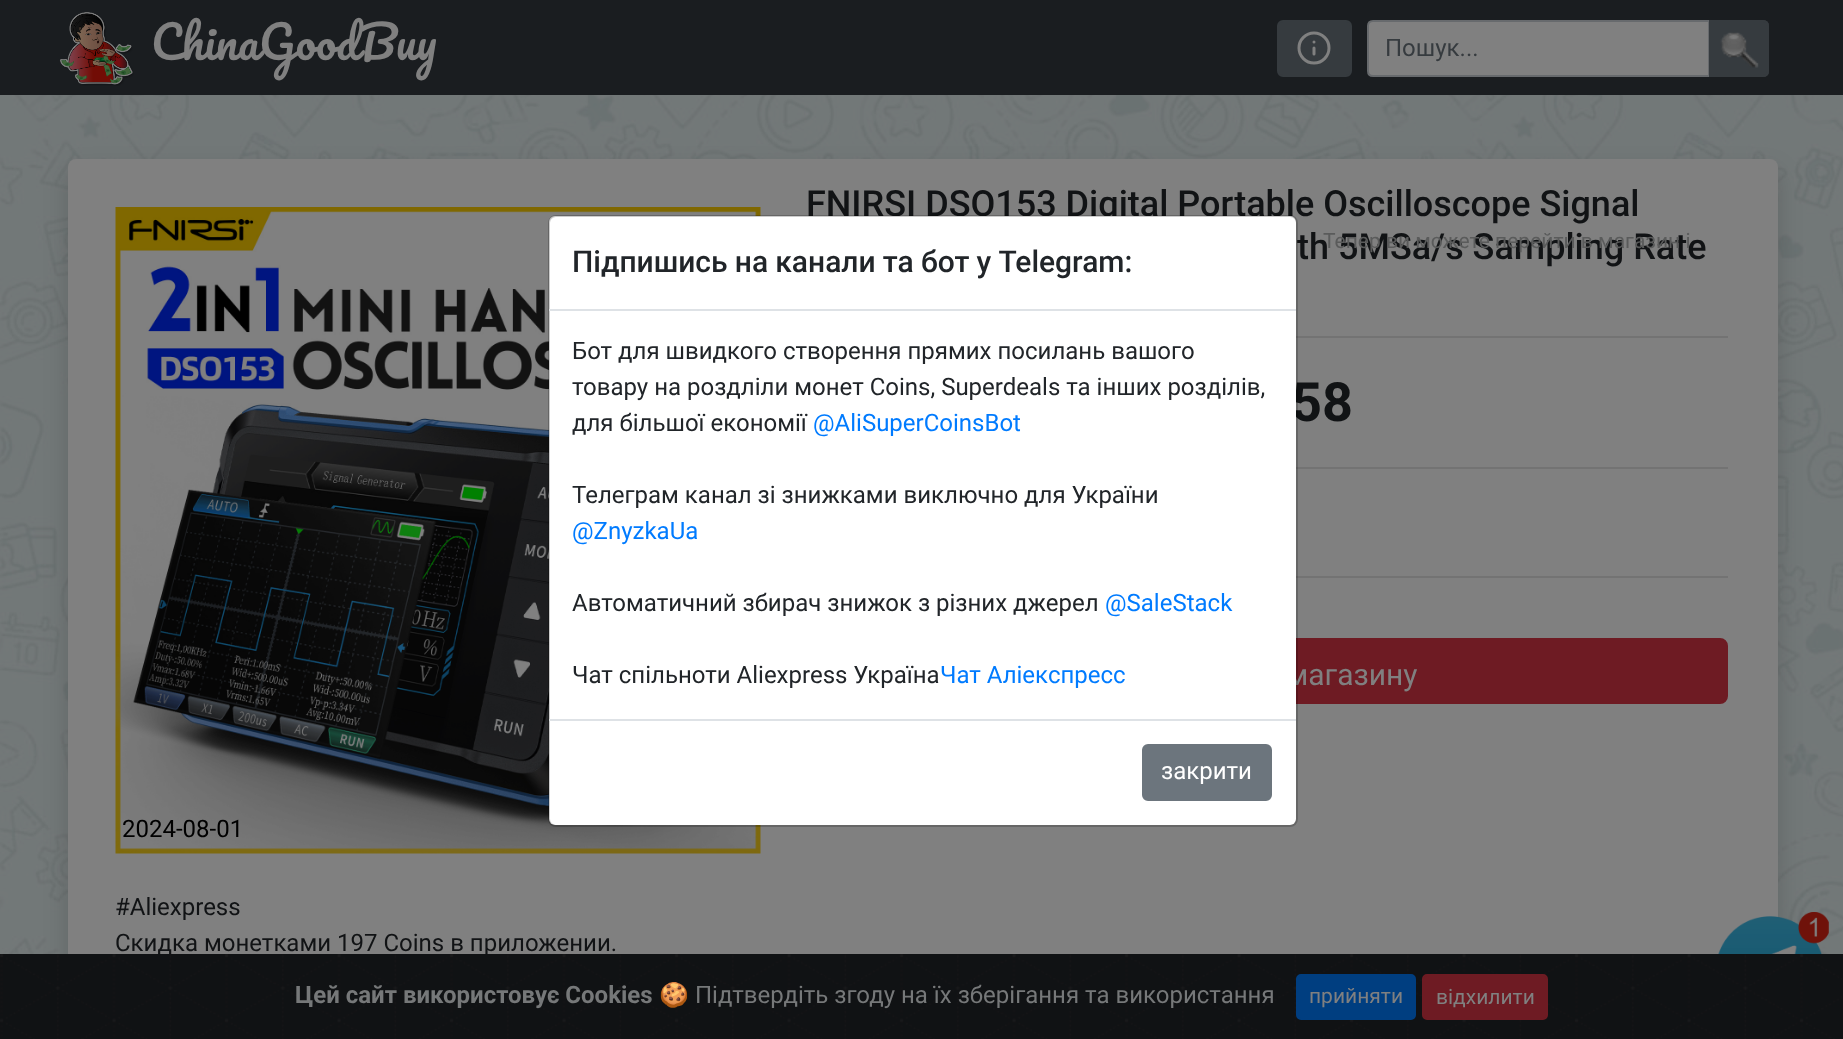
<?xml version="1.0" encoding="UTF-8"?>
<svg xmlns="http://www.w3.org/2000/svg" xmlns:xlink="http://www.w3.org/1999/xlink" width="1843" height="1039">
  <rect width="100%" height="100%" fill="#ffffff" />
  <image x="0" y="95" width="1843" height="859" xlink:href="image1.png" />
  <rect width="1843" height="95" fill="#1a1d20" />
  <image x="59" y="12" width="75" height="74" xlink:href="image2.png" />
  <rect x="1278" y="21" width="73" height="55" rx="5" fill="#363b3f" stroke="#363b3f" stroke-width="2" />
  <image x="1297" y="31" width="34" height="34" xlink:href="image3.png" />
  <path d="M 1373 21 h 336 v 55 h -336 c -3 0 -5 -2 -5 -5 v -45 c 0 -3 2 -5 5 -5 z" fill="#808080" stroke="#676a6d" stroke-width="2" />
  <path d="M 1709 20 h 54 c 3.5 0 6 2.5 6 6 v 45 c 0 3.5 -2.5 6 -6 6 h -54 z" fill="#363b3f" />
  <image x="1720" y="32" width="39" height="36" xlink:href="image4.png" />
  <path d="M 1710 21 h 53 c 3 0 5 2 5 5 v 45 c 0 3 -2 5 -5 5 h -53 z" fill="none" stroke="#363b3f" stroke-width="2" />
  <rect x="68" y="171" width="1710" height="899" rx="8" fill="#000000" fill-opacity="0.15" filter="blur(12px)" />
  <rect x="68" y="159" width="1710" height="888" rx="8" fill="#808080" />
  <rect x="1296" y="336" width="432" height="2" fill="#737373" />
  <rect x="1296" y="467" width="432" height="2" fill="#737373" />
  <rect x="1296" y="576" width="432" height="2" fill="#737373" />
  <rect x="807" y="639" width="920" height="64" rx="7" fill="#6e1b23" stroke="#6e1b23" stroke-width="2" />
  <image x="115" y="207" width="646" height="647" xlink:href="image5.png" />
  <image x="1718" y="912" width="111" height="42" xlink:href="image6.png" />
  <rect x="1842" y="954" width="1" height="85" fill="#111214" />
  <text x="151" y="60" style="font-family: Pacifico; font-size: 45px; fill: #808080">ChinaGoodBuy</text>
  <text x="1385" y="56" style="font-family: Roboto; font-size: 24px; fill: #363b3f">Пошук...</text>
  <text x="806" y="216" style="font-family: Roboto; font-size: 36px; font-weight: 500; fill: #111315">FNIRSI DSO153 Digital Portable Oscilloscope Signal</text>
  <text x="1297" y="259" style="font-family: Roboto; font-size: 36px; font-weight: 500; fill: #111315">th 5MSa/s Sampling Rate</text>
  <text x="1291" y="421" style="font-family: Roboto; font-size: 54px; font-weight: bold; fill: #111315">58</text>
  <text x="1286" y="685" style="font-family: Roboto; font-size: 30px; fill: #808080">магазину</text>
  <text x="122" y="837" style="font-family: Roboto; font-size: 24px; fill: #000000">2024-08-01</text>
  <text x="115" y="915" style="font-family: Roboto; font-size: 24px; fill: #111315">#Aliexpress</text>
  <text x="115" y="951" style="font-family: Roboto; font-size: 24px; fill: #111315">Скидка монетками 197 Coins в приложении.</text>
  <text x="1323" y="248" style="font-family: Roboto; font-size: 21px; fill: #5a5b5b">Тепер ви можете перейти в магазин і</text>
  <rect x="549" y="216" width="747" height="609" rx="6" fill="#ffffff" />
  <rect x="549" y="216" width="748" height="610" rx="7" fill="none" stroke="#000000" stroke-opacity="0.2" stroke-width="2" />
  <rect x="549" y="309" width="747" height="2" fill="#dee2e6" />
  <text x="572" y="272" word-spacing="-0.25" style="font-family: Roboto; font-size: 30px; font-weight: 500; fill: #212529">Підпишись на канали та бот у Telegram:</text>
  <text x="572" y="359" style="font-family: Roboto; font-size: 24px; fill: #212529">Бот для швидкого створення прямих посилань вашого</text>
  <text x="572" y="395" style="font-family: Roboto; font-size: 24px; fill: #212529">товару на роздліли монет Coins, Superdeals та інших розділів,</text>
  <text x="572" y="431" style="font-family: Roboto; font-size: 24px; fill: #212529">для більшої економії</text>
  <text x="813" y="431" style="font-family: Roboto; font-size: 24px; fill: #007bff">@AliSuperCoinsBot</text>
  <text x="572" y="503" style="font-family: Roboto; font-size: 24px; fill: #212529">Телеграм канал зі знижками виключно для України</text>
  <text x="572" y="539" style="font-family: Roboto; font-size: 24px; fill: #007bff">@ZnyzkaUa</text>
  <text x="572" y="611" style="font-family: Roboto; font-size: 24px; fill: #212529">Автоматичний збирач знижок з різних джерел</text>
  <text x="1105" y="611" style="font-family: Roboto; font-size: 24px; fill: #007bff">@SaleStack</text>
  <text x="572" y="683" style="font-family: Roboto; font-size: 24px; fill: #212529">Чат спільноти Aliexpress Україна</text>
  <text x="940" y="683" style="font-family: Roboto; font-size: 24px; fill: #007bff">Чат Аліекспресс</text>
  <rect x="549" y="719" width="747" height="2" fill="#dee2e6" />
  <rect x="1143" y="745" width="128" height="55" rx="5" fill="#6c757d" stroke="#6c757d" stroke-width="2" />
  <text x="1161" y="779" style="font-family: Roboto; font-size: 24px; fill: #ffffff">закрити</text>
  <image x="0" y="954" width="1842" height="85" xlink:href="image7.png" />
  <text x="295" y="1003" style="font-family: Roboto; font-size: 24px; font-weight: bold; fill: #767879">Цей сайт використовує Cookies</text>
  <text x="659" y="1003" style="font-family: Noto Color Emoji; font-size: 24px; fill: #767879">🍪</text>
  <text x="695" y="1003" style="font-family: Roboto; font-size: 24px; fill: #767879">Підтвердіть згоду на їх зберігання та використання</text>
  <rect x="1297" y="975" width="118" height="44" rx="4" fill="#003e80" stroke="#003e80" stroke-width="2" />
  <text x="1309" y="1003" style="font-family: Roboto; font-size: 21px; fill: #808080">прийняти</text>
  <rect x="1423" y="975" width="124" height="44" rx="4" fill="#6e1b23" stroke="#6e1b23" stroke-width="2" />
  <text x="1436" y="1004" style="font-family: Roboto; font-size: 21px; fill: #808080">відхилити</text>
</svg>
